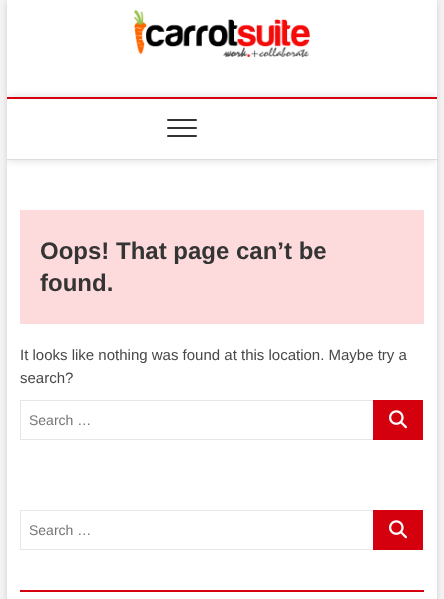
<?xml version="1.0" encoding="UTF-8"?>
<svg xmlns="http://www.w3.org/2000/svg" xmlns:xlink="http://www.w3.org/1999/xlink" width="444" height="599">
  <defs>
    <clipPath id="clip1"><rect x="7" y="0" width="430" height="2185" /></clipPath>
    <clipPath id="clip2"><path d="M 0 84 h 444 v 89 h -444 z m 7 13 h 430 v 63 h -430 z" clip-rule="evenodd" /></clipPath>
  </defs>
  <rect width="100%" height="100%" fill="#f4f4f4" />
  <rect x="7" y="1" width="430" height="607" fill="#000000" fill-opacity="0.15" filter="blur(3px)" />
  <rect x="7" width="430" height="599" fill="#ffffff" />
  <image x="134" y="10" width="176" height="47" xlink:href="image1.png" />
  <g clip-path="url(#clip1)">
    <g clip-path="url(#clip2)">
      <rect x="7" y="97" width="430" height="63" fill="#000000" fill-opacity="0.15" filter="blur(4px)" />
    </g>
  </g>
  <rect x="7" y="97" width="430" height="2" fill="#d4000e" />
  <rect x="7" y="159" width="430" height="1" fill="#dddddd" />
  <rect x="167" y="127" width="30" height="2" rx="1" fill="#333333" />
  <rect x="167" y="119" width="30" height="2" rx="1" fill="#333333" />
  <rect x="167" y="135" width="30" height="2" rx="1" fill="#333333" />
  <rect x="20" y="210" width="404" height="114" fill="#fddbdd" />
  <rect x="20.5" y="400.5" width="353" height="39" fill="none" stroke="#e6e6e6" />
  <rect x="373" y="400" width="50" height="40" fill="#d4000e" />
  <image x="389" y="410" width="18" height="19" xlink:href="image2.png" />
  <rect x="20.5" y="510.5" width="353" height="39" fill="none" stroke="#e6e6e6" />
  <rect x="373" y="510" width="50" height="40" fill="#d4000e" />
  <image x="389" y="520" width="18" height="19" xlink:href="image2.png" />
  <rect x="20" y="590" width="404" height="2" fill="#d4000e" />
  <text x="40" y="259" style="font-family: Liberation Sans; font-size: 24px; font-weight: bold; fill: #343434">Oops! That page can’t be</text>
  <text x="40" y="291" style="font-family: Liberation Sans; font-size: 24px; font-weight: bold; fill: #343434">found.</text>
  <text x="20" y="360" style="font-family: Liberation Sans; font-size: 15px; fill: #484848">It looks like nothing was found at this location. Maybe try a</text>
  <text x="20" y="383" style="font-family: Liberation Sans; font-size: 15px; fill: #484848">search?</text>
  <text x="29" y="425" style="font-family: Liberation Sans; font-size: 14px; fill: #757575">Search …</text>
  <text x="29" y="535" style="font-family: Liberation Sans; font-size: 14px; fill: #757575">Search …</text>
</svg>
